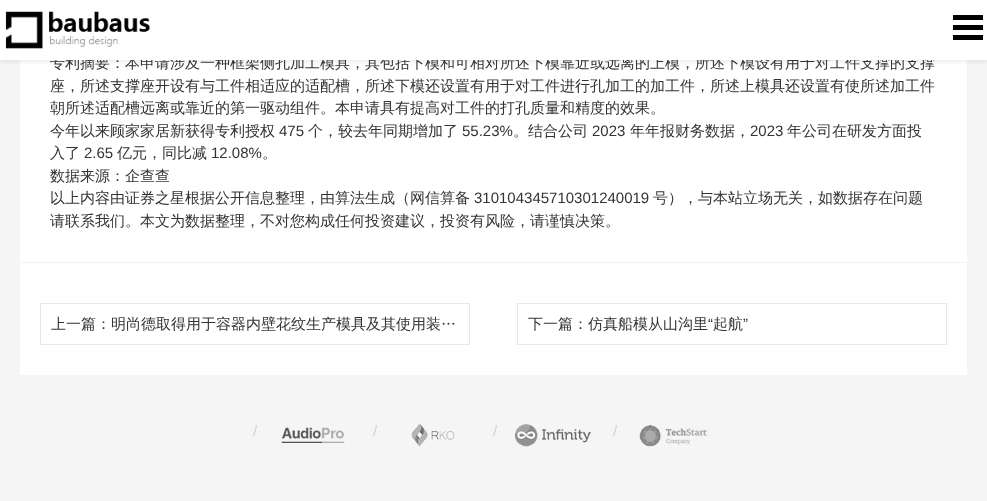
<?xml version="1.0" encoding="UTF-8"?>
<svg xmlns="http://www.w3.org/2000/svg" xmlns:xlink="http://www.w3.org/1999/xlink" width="987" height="501">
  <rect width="100%" height="100%" fill="#f5f5f5" />
  <rect x="20" y="60" width="947" height="315" fill="#ffffff" />
  <rect y="2" width="987" height="60" fill="#000000" fill-opacity="0.08" filter="blur(2px)" />
  <rect x="20" y="262" width="947" height="1" fill="#f0f2f5" />
  <rect x="40.5" y="303.5" width="429" height="41" fill="none" stroke="#e4eaec" />
  <rect x="517.5" y="303.5" width="429" height="41" fill="none" stroke="#e4eaec" />
  <image x="281" y="427" width="64" height="16" xlink:href="image2.png" />
  <image x="411" y="423" width="44" height="24" xlink:href="image3.png" />
  <image x="515" y="424" width="76" height="23" xlink:href="image4.png" />
  <image x="639" y="425" width="68" height="22" xlink:href="image5.png" />
  <text x="50" y="68" style="font-family: WenQuanYi Zen Hei; font-size: 15px; font-weight: 500; fill: #333333">专利摘要：本申请涉及一种框架侧孔加工模具，其包括下模和可相对所述下模靠近或远离的上模，所述下模设有用于对工件支撑的支撑</text>
  <rect width="987" height="60" fill="#ffffff" />
  <rect x="953" y="35" width="30" height="5" fill="#000000" />
  <rect x="953" y="15" width="30" height="5" fill="#000000" />
  <rect x="953" y="25" width="30" height="5" fill="#000000" />
  <image x="5" y="11" width="145" height="38" xlink:href="image1.png" />
  <text x="50" y="91" style="font-family: WenQuanYi Zen Hei; font-size: 15px; font-weight: 500; fill: #333333">座，所述支撑座开设有与工件相适应的适配槽，所述下模还设置有用于对工件进行孔加工的加工件，所述上模具还设置有使所述加工件</text>
  <text x="50" y="113" style="font-family: WenQuanYi Zen Hei; font-size: 15px; font-weight: 500; fill: #333333">朝所述适配槽远离或靠近的第一驱动组件。本申请具有提高对工件的打孔质量和精度的效果。</text>
  <text x="50" y="136" style="font-family: WenQuanYi Zen Hei; font-size: 15px; font-weight: 500; fill: #333333">今年以来顾家家居新获得专利授权</text>
  <text x="279" y="136" style="font-family: Liberation Sans; font-size: 15px; fill: #333333">475</text>
  <text x="308" y="136" style="font-family: WenQuanYi Zen Hei; font-size: 15px; font-weight: 500; fill: #333333">个，较去年同期增加了</text>
  <text x="462" y="136" style="font-family: Liberation Sans; font-size: 15px; fill: #333333">55.23%</text>
  <text x="513" y="136" style="font-family: WenQuanYi Zen Hei; font-size: 15px; font-weight: 500; fill: #333333">。结合公司</text>
  <text x="592" y="136" style="font-family: Liberation Sans; font-size: 15px; fill: #333333">2023</text>
  <text x="630" y="136" style="font-family: WenQuanYi Zen Hei; font-size: 15px; font-weight: 500; fill: #333333">年年报财务数据，</text>
  <text x="750" y="136" style="font-family: Liberation Sans; font-size: 15px; fill: #333333">2023</text>
  <text x="787" y="136" style="font-family: WenQuanYi Zen Hei; font-size: 15px; font-weight: 500; fill: #333333">年公司在研发方面投</text>
  <text x="50" y="158" style="font-family: WenQuanYi Zen Hei; font-size: 15px; font-weight: 500; fill: #333333">入了</text>
  <text x="84" y="158" style="font-family: Liberation Sans; font-size: 15px; fill: #333333">2.65</text>
  <text x="117" y="158" style="font-family: WenQuanYi Zen Hei; font-size: 15px; font-weight: 500; fill: #333333">亿元，同比减</text>
  <text x="211" y="158" style="font-family: Liberation Sans; font-size: 15px; fill: #333333">12.08%</text>
  <text x="262" y="158" style="font-family: WenQuanYi Zen Hei; font-size: 15px; font-weight: 500; fill: #333333">。</text>
  <text x="50" y="181" style="font-family: WenQuanYi Zen Hei; font-size: 15px; font-weight: 500; fill: #333333">数据来源：企查查</text>
  <text x="50" y="203" style="font-family: WenQuanYi Zen Hei; font-size: 15px; font-weight: 500; fill: #333333">以上内容由证券之星根据公开信息整理，由算法生成（网信算备</text>
  <text x="474" y="203" style="font-family: Liberation Sans; font-size: 15px; fill: #333333">310104345710301240019</text>
  <text x="653" y="203" style="font-family: WenQuanYi Zen Hei; font-size: 15px; font-weight: 500; fill: #333333">号），与本站立场无关，如数据存在问题</text>
  <text x="50" y="226" style="font-family: WenQuanYi Zen Hei; font-size: 15px; font-weight: 500; fill: #333333">请联系我们。本文为数据整理，不对您构成任何投资建议，投资有风险，请谨慎决策。</text>
  <text x="51" y="329" style="font-family: WenQuanYi Zen Hei; font-size: 15px; font-weight: 500; fill: #333333">上一篇：明尚德取得用于容器内壁花纹生产模具及其使用装…</text>
  <text x="528" y="329" style="font-family: WenQuanYi Zen Hei; font-size: 15px; font-weight: 500; fill: #333333">下一篇：仿真船模从山沟里</text>
  <text x="708" y="329" style="font-family: Liberation Sans; font-size: 15px; fill: #333333">“</text>
  <text x="713" y="329" style="font-family: WenQuanYi Zen Hei; font-size: 15px; font-weight: 500; fill: #333333">起航</text>
  <text x="743" y="329" style="font-family: Liberation Sans; font-size: 15px; fill: #333333">”</text>
  <text x="253" y="436" style="font-family: Liberation Sans; font-size: 15px; fill: #ccd5db">/</text>
  <text x="373" y="436" style="font-family: Liberation Sans; font-size: 15px; fill: #ccd5db">/</text>
  <text x="493" y="436" style="font-family: Liberation Sans; font-size: 15px; fill: #ccd5db">/</text>
  <text x="613" y="436" style="font-family: Liberation Sans; font-size: 15px; fill: #ccd5db">/</text>
</svg>
